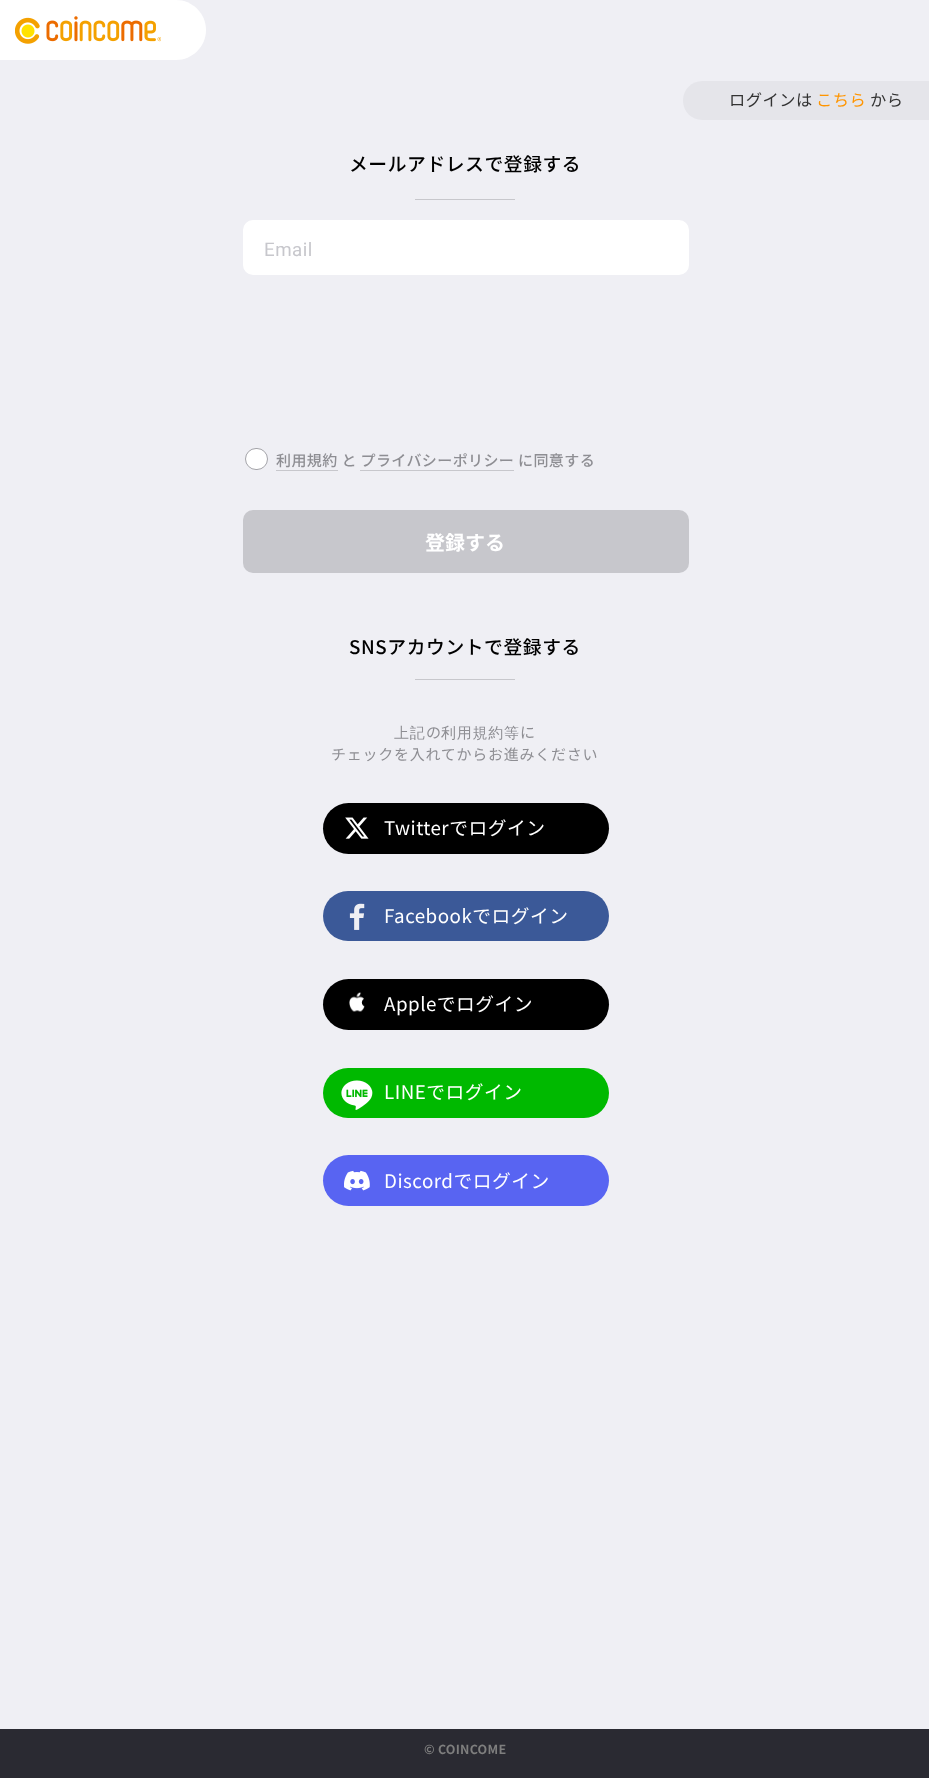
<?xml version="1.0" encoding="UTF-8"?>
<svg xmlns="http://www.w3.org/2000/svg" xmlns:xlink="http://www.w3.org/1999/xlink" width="929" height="1778">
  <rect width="100%" height="100%" fill="#efeff4" />
  <path d="M 0 0 h 176 c 16.5 0 30 13.5 30 30 c 0 16.5 -13.5 30 -30 30 h -176 z" fill="#ffffff" />
  <image x="15" y="16" width="146" height="28" xlink:href="image1.png" />
  <path d="M 702.5 81 h 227.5 v 39 h -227.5 c -11 0 -19.5 -8.5 -19.5 -19.5 c 0 -11 8.5 -19.5 19.5 -19.5 z" fill="#e5e5ea" />
  <rect x="415" y="199" width="100" height="1" fill="#c7c7cc" />
  <rect x="243" y="220" width="446" height="55" rx="10" fill="#ffffff" />
  <rect x="245.5" y="448.5" width="22" height="21" rx="10.5" fill="#ffffff" stroke="#a4a4a9" />
  <rect x="276" y="470" width="62" height="1" fill="#c7c7cc" />
  <rect x="360" y="470" width="154" height="1" fill="#c7c7cc" />
  <rect x="243" y="510" width="446" height="63" rx="10" fill="#c7c7cc" />
  <rect x="415" y="679" width="100" height="1" fill="#c7c7cc" />
  <rect x="323" y="803" width="286" height="51" rx="25.5" fill="#000000" />
  <image x="345" y="817" width="24" height="22" xlink:href="image2.png" />
  <rect x="323" y="891" width="286" height="50" rx="25" fill="#3b5998" />
  <image x="349" y="903" width="16" height="27" xlink:href="image3.png" />
  <rect x="323" y="979" width="286" height="51" rx="25.5" fill="#000000" />
  <image x="349" y="992" width="16" height="20" xlink:href="image4.png" />
  <rect x="323" y="1068" width="286" height="50" rx="25" fill="#00b900" />
  <image x="341" y="1080" width="32" height="30" xlink:href="image5.png" />
  <rect x="323" y="1155" width="286" height="51" rx="25.5" fill="#5864f2" />
  <image x="344" y="1170" width="26" height="21" xlink:href="image6.png" />
  <rect y="1729" width="929" height="49" fill="#2a2a32" />
  <text x="729" y="106" style="font-family: Noto Sans JP; font-size: 16.25px; letter-spacing: 0.5px; fill: #333333">ログインは</text>
  <text x="816" y="106" style="font-family: Noto Sans JP; font-size: 16.25px; letter-spacing: 0.5px; fill: #ff9500">こちら</text>
  <text x="870" y="106" style="font-family: Noto Sans JP; font-size: 16.25px; letter-spacing: 0.5px; fill: #333333">から</text>
  <text x="349" y="171" style="font-family: Noto Sans JP; font-size: 18.75px; font-weight: 500; letter-spacing: 0.6px; fill: #000000">メールアドレスで登録する</text>
  <text x="264" y="256" style="font-family: Roboto; font-size: 18.75px; letter-spacing: 0.5px; fill: #c7c7cc">Email</text>
  <text x="276" y="466" style="font-family: Noto Sans JP; font-size: 15px; font-weight: 500; letter-spacing: 0.4px; fill: #8e8e93">利用規約 と プライバシーポリシー に同意する</text>
  <text x="425" y="550" style="font-family: Noto Sans JP; font-size: 20px; font-weight: bold; fill: #ffffff">登録する</text>
  <text x="349" y="654" style="font-family: Noto Sans JP; font-size: 18.75px; font-weight: 500; letter-spacing: 0.6px; fill: #000000">SNSアカウントで登録する</text>
  <text x="394" y="738" style="font-family: WenQuanYi Zen Hei; font-size: 15px; font-weight: 500; letter-spacing: 0.75px; fill: #8e8e93">上記</text>
  <text x="426" y="738" style="font-family: Noto Sans JP; font-size: 15px; letter-spacing: 0.75px; fill: #8e8e93">の</text>
  <text x="441" y="738" style="font-family: WenQuanYi Zen Hei; font-size: 15px; font-weight: 500; letter-spacing: 0.75px; fill: #8e8e93">利用規約等</text>
  <text x="520" y="738" style="font-family: Noto Sans JP; font-size: 15px; letter-spacing: 0.75px; fill: #8e8e93">に</text>
  <text x="331" y="760" style="font-family: Noto Sans JP; font-size: 15px; letter-spacing: 0.75px; fill: #8e8e93">チェックを入れてからお進みください</text>
  <text x="384" y="835" style="font-family: Noto Sans JP; font-size: 18.75px; letter-spacing: 0.5px; fill: #ffffff">Twitterでログイン</text>
  <text x="384" y="923" style="font-family: Noto Sans JP; font-size: 18.75px; letter-spacing: 0.5px; fill: #ffffff">Facebookでログイン</text>
  <text x="384" y="1011" style="font-family: Noto Sans JP; font-size: 18.75px; letter-spacing: 0.5px; fill: #ffffff">Appleでログイン</text>
  <text x="384" y="1099" style="font-family: Noto Sans JP; font-size: 18.75px; letter-spacing: 0.5px; fill: #ffffff">LINEでログイン</text>
  <text x="384" y="1188" style="font-family: Noto Sans JP; font-size: 18.75px; letter-spacing: 0.5px; fill: #ffffff">Discordでログイン</text>
  <text x="424" y="1754" style="font-family: Noto Sans JP; font-size: 12.5px; font-weight: bold; letter-spacing: 0.25px; fill: #7e7e7e">© COINCOME</text>
</svg>
